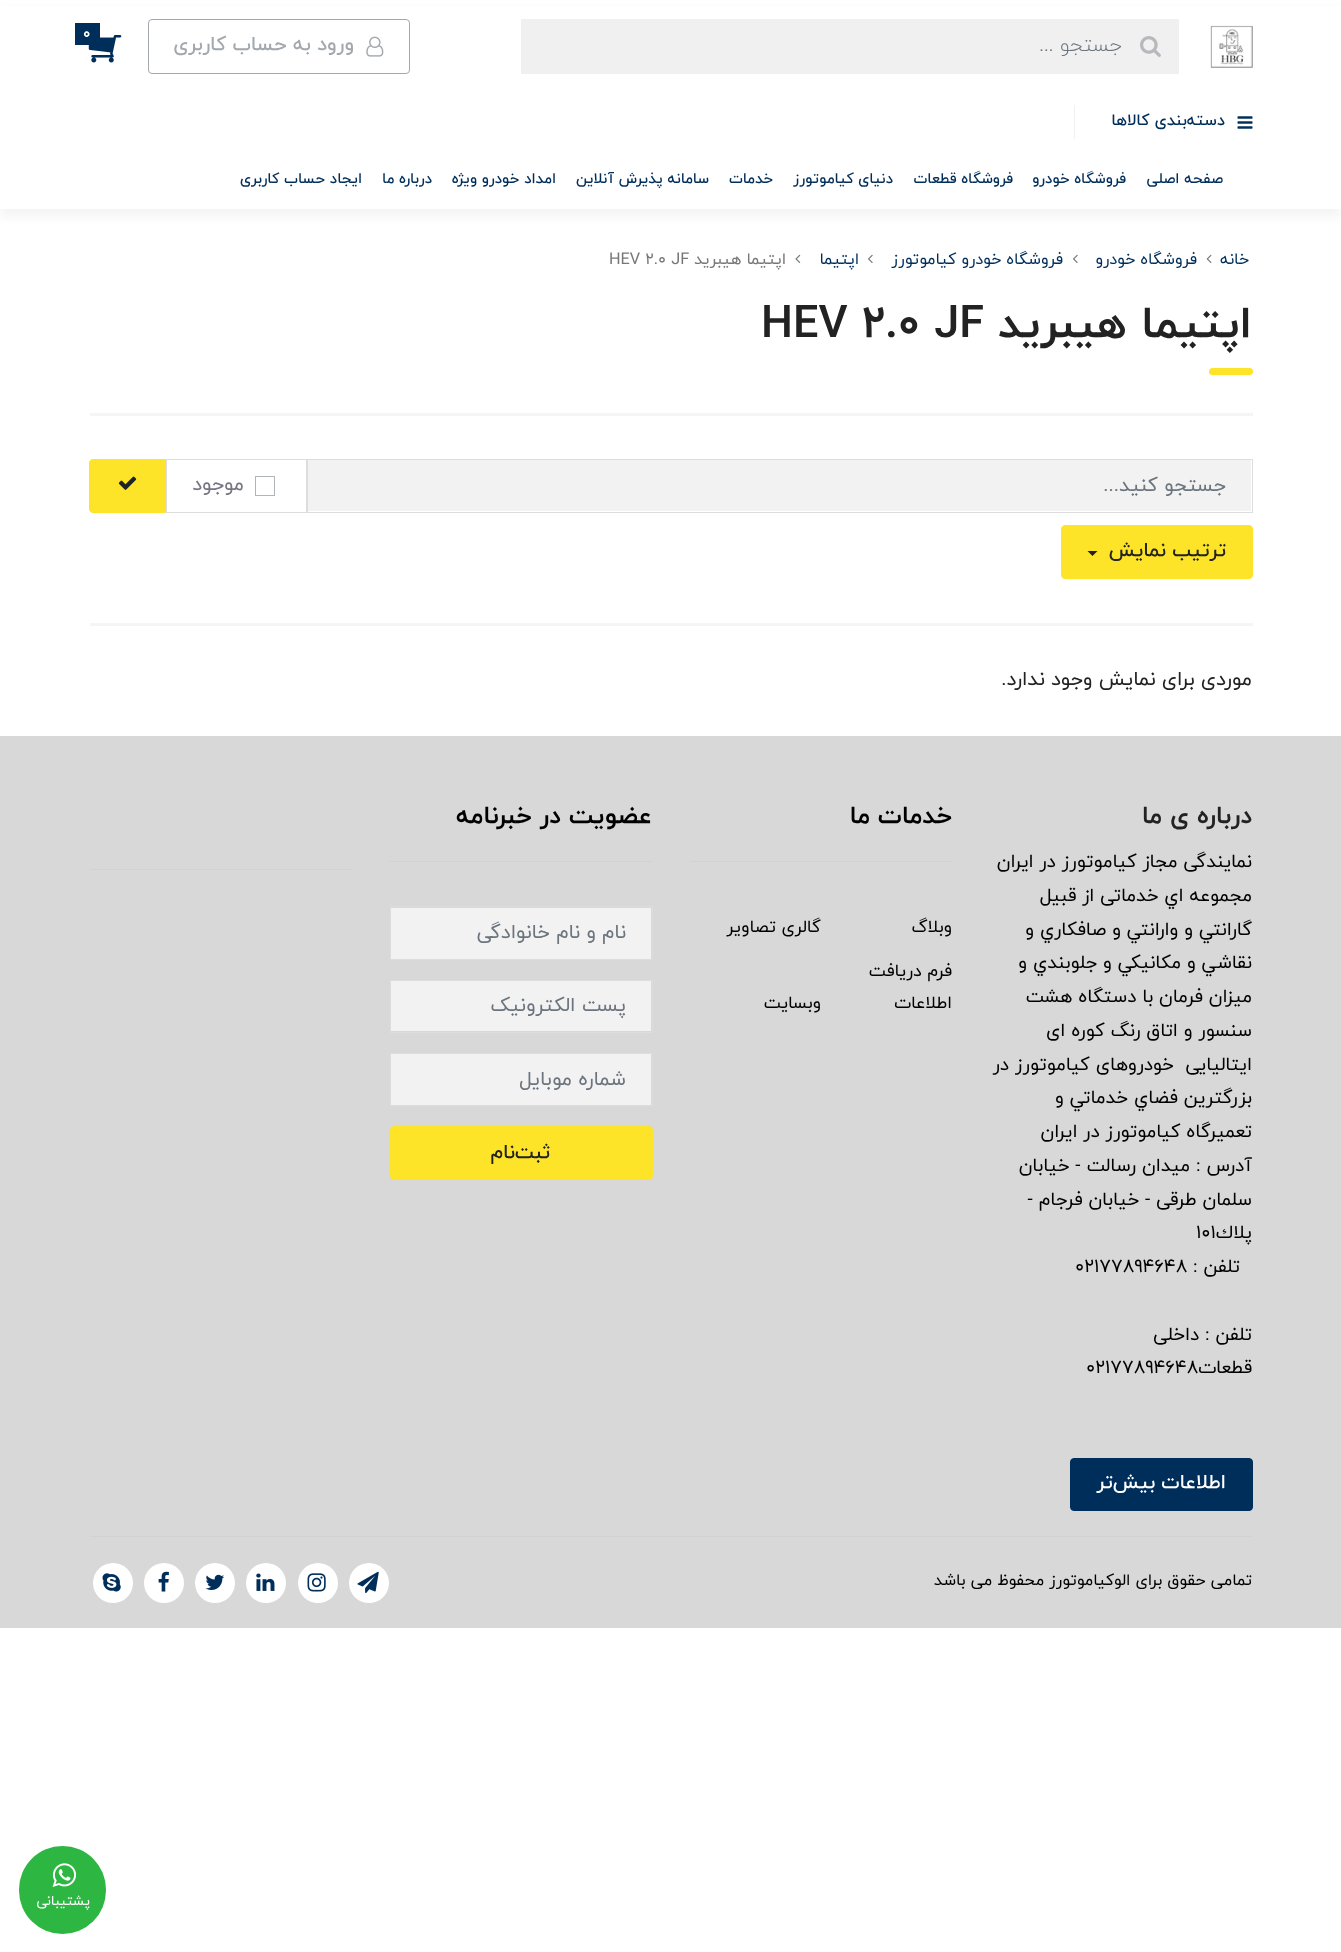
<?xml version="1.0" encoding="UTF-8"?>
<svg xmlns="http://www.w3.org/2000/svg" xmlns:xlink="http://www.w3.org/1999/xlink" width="1341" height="1952">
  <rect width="100%" height="100%" fill="#ffffff" />
  <rect y="9" width="1341" height="209" fill="#000000" fill-opacity="0.04" filter="blur(5px)" />
  <rect y="6" width="1341" height="203" fill="#ffffff" />
  <image x="1210" y="25" width="43" height="43" xlink:href="image1.png" />
  <rect x="521" y="19" width="658" height="55" fill="#f0f0f1" />
  <image x="1140" y="36" width="21" height="21" xlink:href="image2.png" />
  <image x="88" y="35" width="34" height="28" xlink:href="image3.png" />
  <rect x="75" y="23" width="25" height="22" fill="#002e5b" />
  <rect x="148.5" y="19.5" width="261" height="54" rx="3.5" fill="none" stroke="#a2a8ae" />
  <image x="366" y="36" width="18" height="21" xlink:href="image4.png" />
  <image x="1237" y="116" width="16" height="13" xlink:href="image5.png" />
  <rect x="1074" y="105" width="1" height="34" fill="#f0f0f0" />
  <image x="1206" y="254" width="6" height="9" xlink:href="image6.png" />
  <image x="1073" y="254" width="5" height="9" xlink:href="image7.png" />
  <image x="868" y="254" width="5" height="9" xlink:href="image7.png" />
  <image x="795" y="254" width="6" height="9" xlink:href="image8.png" />
  <rect x="1209" y="368" width="44" height="7" rx="3.5" fill="#fde428" />
  <rect x="90" y="413" width="1163" height="3" fill="#f5f5f5" />
  <rect x="308" y="460" width="943" height="51" fill="#f2f2f2" />
  <rect x="166.5" y="459.5" width="141" height="53" fill="none" stroke="#dddddd" />
  <rect x="306.5" y="459.5" width="946" height="53" fill="none" stroke="#dddddd" />
  <rect x="255.5" y="476.5" width="19" height="19" fill="none" stroke="#adb5bd" />
  <path d="M 93 459.5 h 72.5 v 53 h -72.5 c -2 0 -3.5 -1.5 -3.5 -3.5 v -46 c 0 -2 1.5 -3.5 3.5 -3.5 z" fill="#fde428" stroke="#fde428" />
  <image x="118" y="476" width="19" height="14" xlink:href="image9.png" />
  <rect x="1061.5" y="525.5" width="191" height="53" rx="3.5" fill="#fde428" stroke="#fde428" />
  <path d="M 1087.5 551 h 10 l -5 5 z" fill="#222222" />
  <rect x="90" y="623" width="1163" height="3" fill="#f5f5f5" />
  <rect y="736" width="1341" height="892" fill="#d8d8d8" />
  <rect x="1070.5" y="1458.5" width="182" height="52" rx="3.5" fill="#002e5b" stroke="#002e5b" />
  <rect x="690" y="861" width="263" height="1" fill="#d2d2d2" />
  <rect x="390" y="861" width="263" height="1" fill="#d2d2d2" />
  <rect x="391" y="908" width="260" height="51" fill="#f2f2f2" />
  <rect x="390.5" y="906.5" width="262" height="53" fill="none" stroke="#dddddd" />
  <rect x="391" y="981" width="260" height="50" fill="#f2f2f2" />
  <rect x="390.5" y="980.5" width="262" height="52" fill="none" stroke="#dddddd" />
  <rect x="391" y="1054" width="260" height="51" fill="#f2f2f2" />
  <rect x="390.5" y="1053.5" width="262" height="52" fill="none" stroke="#dddddd" />
  <rect x="390.5" y="1126.5" width="262" height="53" rx="3.5" fill="#fde428" stroke="#fde428" />
  <rect x="90" y="869" width="263" height="1" fill="#d2d2d2" />
  <rect x="19" y="1846" width="87" height="88" rx="43.5" fill="#2db742" />
  <image x="52" y="1863" width="25" height="24" xlink:href="image10.png" />
  <rect x="90" y="1536" width="1163" height="1" fill="#d2d2d2" />
  <circle cx="369" cy="1583" r="20" fill="#ffffff" />
  <image x="357" y="1571" width="22" height="22" xlink:href="image11.png" />
  <circle cx="318" cy="1583" r="20" fill="#ffffff" />
  <image x="307" y="1573" width="19" height="19" xlink:href="image12.png" />
  <circle cx="266" cy="1583" r="20" fill="#ffffff" />
  <image x="256" y="1573" width="19" height="18" xlink:href="image13.png" />
  <circle cx="215" cy="1583" r="20" fill="#ffffff" />
  <image x="205" y="1574" width="19" height="16" xlink:href="image14.png" />
  <circle cx="164" cy="1583" r="20" fill="#ffffff" />
  <image x="158" y="1571" width="11" height="21" xlink:href="image15.png" />
  <circle cx="113" cy="1583" r="20" fill="#ffffff" />
  <image x="102" y="1573" width="19" height="19" xlink:href="image16.png" />
  <text x="1122" y="51" style="font-family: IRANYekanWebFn; font-size: 20px; font-weight: 300; direction: rtl; fill: #6c757d">جستجو ...</text>
  <text x="83" y="38" style="font-family: IRANYekanWebFn; font-size: 15px; font-weight: bold; fill: #ffffff">0</text>
  <text x="354" y="50" style="font-family: IRANYekanWebFn; font-size: 20px; font-weight: 500; direction: rtl; fill: #a2a8ae">ورود به حساب کاربری</text>
  <text x="1225" y="125" style="font-family: IRANYekanWebFn; font-size: 16.25px; font-weight: 500; direction: rtl; fill: #002e5b">دسته‌بندی کالاها</text>
  <text x="1223" y="183" style="font-family: IRANYekanWebFn; font-size: 15px; font-weight: 500; direction: rtl; fill: #002e5b">صفحه اصلی</text>
  <text x="1126" y="183" style="font-family: IRANYekanWebFn; font-size: 15px; font-weight: 500; direction: rtl; fill: #002e5b">فروشگاه خودرو</text>
  <text x="1013" y="183" style="font-family: IRANYekanWebFn; font-size: 15px; font-weight: 500; direction: rtl; fill: #002e5b">فروشگاه قطعات</text>
  <text x="893" y="183" style="font-family: IRANYekanWebFn; font-size: 15px; font-weight: 500; direction: rtl; fill: #002e5b">دنیای</text>
  <text x="854" y="183" style="font-family: IRANYekanWebFn; font-size: 15px; font-weight: 500; direction: rtl; fill: #002e5b">کیاموتورز</text>
  <text x="773" y="183" style="font-family: IRANYekanWebFn; font-size: 15px; font-weight: 500; direction: rtl; fill: #002e5b">خدمات</text>
  <text x="709" y="183" style="font-family: IRANYekanWebFn; font-size: 15px; font-weight: 500; direction: rtl; fill: #002e5b">سامانه پذیرش آنلاین</text>
  <text x="556" y="183" style="font-family: IRANYekanWebFn; font-size: 15px; font-weight: 500; direction: rtl; fill: #002e5b">امداد خودرو ویژه</text>
  <text x="432" y="183" style="font-family: IRANYekanWebFn; font-size: 15px; font-weight: 500; direction: rtl; fill: #002e5b">درباره ما</text>
  <text x="362" y="183" style="font-family: IRANYekanWebFn; font-size: 15px; font-weight: 500; direction: rtl; fill: #002e5b">ایجاد حساب کاربری</text>
  <text x="1249" y="264" style="font-family: IRANYekanWebFn; font-size: 16.25px; direction: rtl; fill: #002e5b">خانه</text>
  <text x="1197" y="264" style="font-family: IRANYekanWebFn; font-size: 16.25px; direction: rtl; fill: #002e5b">فروشگاه خودرو</text>
  <text x="1063" y="264" style="font-family: IRANYekanWebFn; font-size: 16.25px; direction: rtl; fill: #002e5b">فروشگاه خودرو کیاموتورز</text>
  <text x="859" y="264" style="font-family: IRANYekanWebFn; font-size: 16.25px; direction: rtl; fill: #002e5b">اپتیما</text>
  <text x="786" y="264" style="font-family: IRANYekanWebFn; font-size: 16.25px; direction: rtl; fill: #777777">اپتیما هیبرید</text>
  <text x="609" y="264" style="font-family: IRANYekanWebFn; font-size: 16.25px; fill: #777777">HEV 2.0 JF</text>
  <text x="1252" y="337" style="font-family: IRANYekanWebFn; font-size: 45px; font-weight: bold; direction: rtl; fill: #222222">اپتیما هیبرید</text>
  <text x="761" y="337" style="font-family: IRANYekanWebFn; font-size: 45px; font-weight: bold; fill: #222222">HEV 2.0 JF</text>
  <text x="1226" y="491" style="font-family: IRANYekanWebFn; font-size: 20px; direction: rtl; fill: #6c757d">جستجو کنید...</text>
  <text x="244" y="490" style="font-family: IRANYekanWebFn; font-size: 20px; direction: rtl; fill: #757584">موجود</text>
  <text x="1226" y="556" style="font-family: IRANYekanWebFn; font-size: 20px; font-weight: 500; direction: rtl; fill: #222222">ترتیب نمایش</text>
  <text x="1252" y="685" style="font-family: IRANYekanWebFn; font-size: 20px; direction: rtl; fill: #222222">موردی برای نمایش وجود ندارد.</text>
  <text x="1252" y="823" style="font-family: IRANYekanWebFn; font-size: 25px; font-weight: bold; direction: rtl; fill: #222222">درباره ی ما</text>
  <text x="1252" y="867" style="font-family: IRANYekanWebFn; font-size: 18.75px; direction: rtl; fill: #000000">نمايندگى مجاز كياموتورز در ايران</text>
  <text x="1252" y="901" style="font-family: IRANYekanWebFn; font-size: 18.75px; direction: rtl; fill: #000000">مجموعه اي خدماتى از قبيل</text>
  <text x="1252" y="935" style="font-family: IRANYekanWebFn; font-size: 18.75px; direction: rtl; fill: #000000">گارانتي و وارانتي و صافكاري و</text>
  <text x="1252" y="968" style="font-family: IRANYekanWebFn; font-size: 18.75px; direction: rtl; fill: #000000">نقاشي و مكانيكي و جلوبندي و</text>
  <text x="1252" y="1002" style="font-family: IRANYekanWebFn; font-size: 18.75px; direction: rtl; fill: #000000">ميزان فرمان با دستگاه هشت</text>
  <text x="1252" y="1036" style="font-family: IRANYekanWebFn; font-size: 18.75px; direction: rtl; fill: #000000">سنسور و اتاق رنگ كوره اى</text>
  <text x="1252" y="1070" style="font-family: IRANYekanWebFn; font-size: 18.75px; direction: rtl; fill: #000000" xml:space="preserve">ايتاليايى  خودروهاى كياموتورز در</text>
  <text x="1252" y="1103" style="font-family: IRANYekanWebFn; font-size: 18.75px; direction: rtl; fill: #000000">بزرگترين فضاي خدماتي و</text>
  <text x="1252" y="1137" style="font-family: IRANYekanWebFn; font-size: 18.75px; direction: rtl; fill: #000000">تعميرگاه كياموتورز در ايران</text>
  <text x="1252" y="1171" style="font-family: IRANYekanWebFn; font-size: 18.75px; direction: rtl; fill: #000000">آدرس : ميدان رسالت - خيابان</text>
  <text x="1252" y="1205" style="font-family: IRANYekanWebFn; font-size: 18.75px; direction: rtl; fill: #000000">سلمان طرقى - خيابان فرجام -</text>
  <text x="1252" y="1238" style="font-family: IRANYekanWebFn; font-size: 18.75px; direction: rtl; fill: #000000">پلاك</text>
  <text x="1196" y="1238" style="font-family: IRANYekanWebFn; font-size: 18.75px; fill: #000000">١٠١</text>
  <text x="1240" y="1272" style="font-family: IRANYekanWebFn; font-size: 18.75px; direction: rtl; fill: #000000">تلفن :</text>
  <text x="1075" y="1272" style="font-family: IRANYekanWebFn; font-size: 18.75px; fill: #000000">٠٢١٧٧٨٩٤٦٤٨</text>
  <text x="1252" y="1340" style="font-family: IRANYekanWebFn; font-size: 18.75px; direction: rtl; fill: #000000">تلفن : داخلی</text>
  <text x="1252" y="1373" style="font-family: IRANYekanWebFn; font-size: 18.75px; direction: rtl; fill: #000000">قطعات</text>
  <text x="1086" y="1373" style="font-family: IRANYekanWebFn; font-size: 18.75px; fill: #000000">02177894648</text>
  <text x="1226" y="1488" style="font-family: IRANYekanWebFn; font-size: 20px; font-weight: 500; direction: rtl; fill: #ffffff">اطلاعات بیش‌تر</text>
  <text x="952" y="823" style="font-family: IRANYekanWebFn; font-size: 25px; font-weight: bold; direction: rtl; fill: #000000">خدمات ما</text>
  <text x="952" y="932" style="font-family: IRANYekanWebFn; font-size: 17.5px; direction: rtl; fill: #000000">وبلاگ</text>
  <text x="821" y="932" style="font-family: IRANYekanWebFn; font-size: 17.5px; direction: rtl; fill: #000000">گالری تصاویر</text>
  <text x="952" y="976" style="font-family: IRANYekanWebFn; font-size: 17.5px; direction: rtl; fill: #000000">فرم دریافت</text>
  <text x="952" y="1008" style="font-family: IRANYekanWebFn; font-size: 17.5px; direction: rtl; fill: #000000">اطلاعات</text>
  <text x="821" y="1008" style="font-family: IRANYekanWebFn; font-size: 17.5px; direction: rtl; fill: #000000">وبسایت</text>
  <text x="652" y="823" style="font-family: IRANYekanWebFn; font-size: 25px; font-weight: bold; direction: rtl; fill: #000000">عضویت در خبرنامه</text>
  <text x="626" y="938" style="font-family: IRANYekanWebFn; font-size: 20px; direction: rtl; fill: #6c757d">نام و نام خانوادگی</text>
  <text x="626" y="1011" style="font-family: IRANYekanWebFn; font-size: 20px; direction: rtl; fill: #6c757d">پست الکترونیک</text>
  <text x="626" y="1085" style="font-family: IRANYekanWebFn; font-size: 20px; direction: rtl; fill: #6c757d">شماره موبایل</text>
  <text x="550" y="1158" style="font-family: IRANYekanWebFn; font-size: 20px; font-weight: 500; direction: rtl; fill: #222222">ثبت‌نام</text>
  <text x="90" y="1905" style="font-family: IRANYekanWebFn; font-size: 14px; direction: rtl; fill: #ffffff">پشتیبانی</text>
  <text x="1252" y="1585" style="font-family: IRANYekanWebFn; font-size: 16.25px; direction: rtl; fill: #000000">تمامی حقوق برای الوکیاموتورز محفوظ می باشد</text>
</svg>
